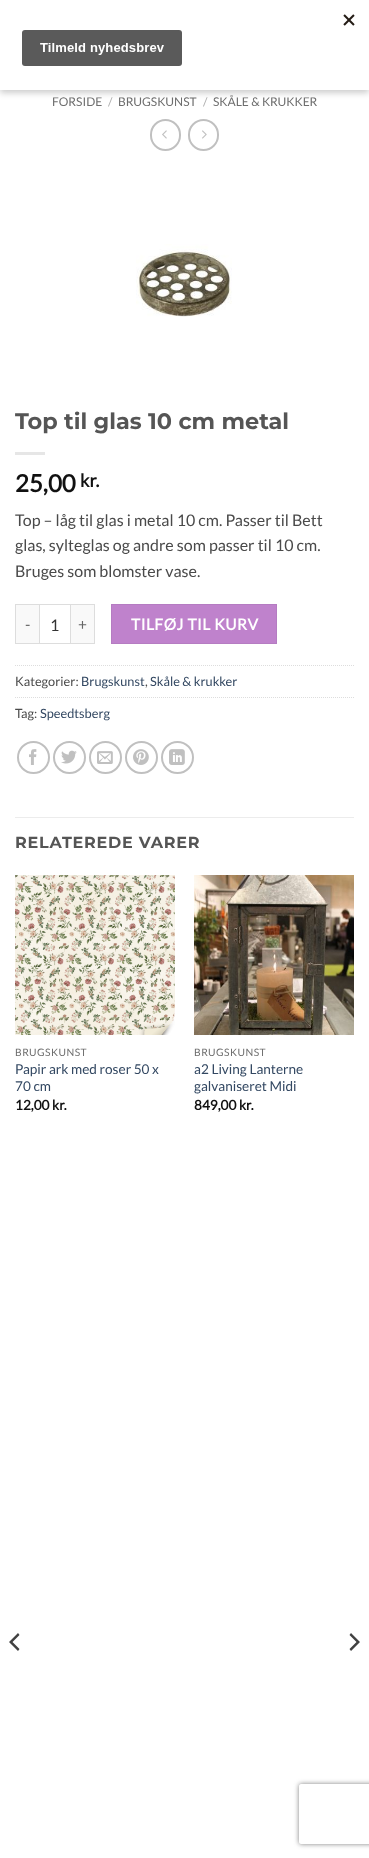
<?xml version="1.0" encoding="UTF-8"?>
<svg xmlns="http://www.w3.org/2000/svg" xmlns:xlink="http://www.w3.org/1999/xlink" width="369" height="1858">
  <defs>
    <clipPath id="clip1"><path d="M 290 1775 h 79 v 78 h -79 z m 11 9 h 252 c 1 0 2 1 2 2 v 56 c 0 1 -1 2 -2 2 h -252 c -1 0 -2 -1 -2 -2 v -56 c 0 -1 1 -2 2 -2 z" clip-rule="evenodd" /></clipPath>
  </defs>
  <rect width="100%" height="100%" fill="#ffffff" />
  <rect y="3" width="369" height="90" fill="#000000" fill-opacity="0.2" filter="blur(3px)" />
  <rect width="369" height="90" fill="#ffffff" />
  <image x="22" y="14" width="333" height="52" xlink:href="image1.png" />
  <rect x="151" y="120" width="29" height="30" rx="14.5" fill="none" stroke="#c0c0c0" stroke-width="2" />
  <image x="162" y="130" width="5" height="9" xlink:href="image2.png" />
  <rect x="189" y="120" width="29" height="30" rx="14.5" fill="none" stroke="#c0c0c0" stroke-width="2" />
  <image x="202" y="130" width="5" height="9" xlink:href="image3.png" />
  <image x="136" y="244" width="96" height="73" xlink:href="image4.png" />
  <rect x="15" y="452" width="30" height="3" fill="#e6e6e6" />
  <rect x="16" y="605" width="23" height="38" fill="#f9f9f9" />
  <rect x="15" y="604" width="24" height="1" fill="#dddddd" />
  <rect x="15" y="643" width="24" height="1" fill="#dddddd" />
  <rect x="15" y="604" width="1" height="40" fill="#dddddd" />
  <rect x="39.5" y="604.5" width="31" height="39" fill="none" stroke="#dddddd" />
  <rect x="71" y="605" width="23" height="38" fill="#f9f9f9" />
  <rect x="71" y="604" width="24" height="1" fill="#dddddd" />
  <rect x="94" y="604" width="1" height="40" fill="#dddddd" />
  <rect x="71" y="643" width="24" height="1" fill="#dddddd" />
  <rect x="111.5" y="604.5" width="165" height="39" fill="#bf82cc" stroke="#b57cc2" />
  <path d="M 15 665.5 h 339" fill="none" stroke="#dddddd" stroke-dasharray="1 1" />
  <path d="M 15 697.5 h 339" fill="none" stroke="#dddddd" stroke-dasharray="1 1" />
  <circle cx="33.5" cy="757.5" r="15.5" fill="none" stroke="#c0c0c0" stroke-width="2" />
  <image x="29" y="749" width="8" height="16" xlink:href="image5.png" />
  <circle cx="69.5" cy="757.5" r="15.5" fill="none" stroke="#c0c0c0" stroke-width="2" />
  <image x="61" y="750" width="16" height="14" xlink:href="image6.png" />
  <circle cx="105.5" cy="757.5" r="15.5" fill="none" stroke="#c0c0c0" stroke-width="2" />
  <image x="97" y="751" width="16" height="13" xlink:href="image7.png" />
  <circle cx="141.5" cy="757.5" r="15.5" fill="none" stroke="#c0c0c0" stroke-width="2" />
  <image x="133" y="749" width="16" height="16" xlink:href="image8.png" />
  <circle cx="177.5" cy="757.5" r="15.5" fill="none" stroke="#c0c0c0" stroke-width="2" />
  <image x="169" y="749" width="16" height="16" xlink:href="image9.png" />
  <rect x="15" y="817" width="339" height="1" fill="#ececec" />
  <image x="15" y="875" width="160" height="160" xlink:href="image10.png" />
  <image x="194" y="875" width="160" height="160" xlink:href="image11.png" />
  <path d="M 9 1642 l 9 9 l 1.5 -2 l -7 -7 l 7 -7 l -1.5 -2 z" fill="#414141" />
  <path d="M 360 1642 l -9 -9 l -1.5 2 l 7 7 l -7 7 l 1.5 2 z" fill="#414141" />
  <g clip-path="url(#clip1)">
    <rect x="299" y="1784" width="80" height="60" rx="2" fill="#808080" filter="blur(2.5px)" />
  </g>
  <text x="52" y="106" style="font-family: Lato; font-size: 12px; fill: #6e6e6e">FORSIDE</text>
  <text x="108" y="106" style="font-family: Lato; font-size: 12px; fill: #b2b2b2">/</text>
  <text x="118" y="106" style="font-family: Lato; font-size: 12px; fill: #6e6e6e">BRUGSKUNST</text>
  <text x="203" y="106" style="font-family: Lato; font-size: 12px; fill: #b2b2b2">/</text>
  <text x="213" y="106" style="font-family: Lato; font-size: 12px; fill: #6e6e6e">SKÅLE &amp; KRUKKER</text>
  <text x="15" y="429" style="font-family: Montserrat; font-size: 22.4px; font-weight: bold; fill: #555555">Top til glas 10 cm metal</text>
  <text x="15" y="492" style="font-family: Lato; font-size: 24px; font-weight: bold; fill: #111111">25,00</text>
  <text x="80" y="487" style="font-family: Lato; font-size: 18px; font-weight: bold; fill: #111111">kr.</text>
  <text x="15" y="526" style="font-family: Lato; font-size: 16px; fill: #4a4a4a">Top – låg til glas i metal 10 cm. Passer til Bett</text>
  <text x="15" y="551" style="font-family: Lato; font-size: 16px; fill: #4a4a4a">glas, sylteglas og andre som passer til 10 cm.</text>
  <text x="15" y="577" style="font-family: Lato; font-size: 16px; fill: #4a4a4a">Bruges som blomster vase.</text>
  <text x="25" y="630" style="font-family: Lato; font-size: 15.5px; letter-spacing: 0.5px; fill: #666666">-</text>
  <text x="50" y="631" style="font-family: Lato; font-size: 16px; fill: #333333">1</text>
  <text x="78" y="630" style="font-family: Lato; font-size: 15.5px; letter-spacing: 0.5px; fill: #666666">+</text>
  <text x="131" y="630" style="font-family: Lato; font-size: 15.5px; font-weight: bold; letter-spacing: 0.5px; fill: #ffffff">TILFØJ TIL KURV</text>
  <text x="15" y="686" style="font-family: Lato; font-size: 12.75px; fill: #4a4a4a">Kategorier:</text>
  <text x="81" y="686" style="font-family: Lato; font-size: 12.75px; fill: #334862">Brugskunst</text>
  <text x="145" y="686" style="font-family: Lato; font-size: 12.75px; fill: #4a4a4a">,</text>
  <text x="150" y="686" style="font-family: Lato; font-size: 12.75px; fill: #334862">Skåle &amp; krukker</text>
  <text x="15" y="718" style="font-family: Lato; font-size: 12.75px; fill: #4a4a4a">Tag:</text>
  <text x="40" y="718" style="font-family: Lato; font-size: 12.75px; fill: #334862">Speedtsberg</text>
  <text x="15" y="848" style="font-family: Montserrat; font-size: 16px; font-weight: bold; letter-spacing: 0.75px; fill: #555555">RELATEREDE VARER</text>
  <text x="15" y="1056" style="font-family: Lato; font-size: 10.25px; letter-spacing: 0.5px; fill: #6e6e6e">BRUGSKUNST</text>
  <text x="15" y="1074" style="font-family: Lato; font-size: 13.6px; fill: #334862">Papir ark med roser 50 x</text>
  <text x="15" y="1091" style="font-family: Lato; font-size: 13.6px; fill: #334862">70 cm</text>
  <text x="15" y="1110" style="font-family: Lato; font-size: 13.6px; font-weight: bold; fill: #111111">12,00 kr.</text>
  <text x="194" y="1056" style="font-family: Lato; font-size: 10.25px; letter-spacing: 0.5px; fill: #6e6e6e">BRUGSKUNST</text>
  <text x="194" y="1074" style="font-family: Lato; font-size: 13.6px; fill: #334862">a2 Living Lanterne</text>
  <text x="194" y="1091" style="font-family: Lato; font-size: 13.6px; fill: #334862">galvaniseret Midi</text>
  <text x="194" y="1110" style="font-family: Lato; font-size: 13.6px; font-weight: bold; fill: #111111">849,00 kr.</text>
</svg>
